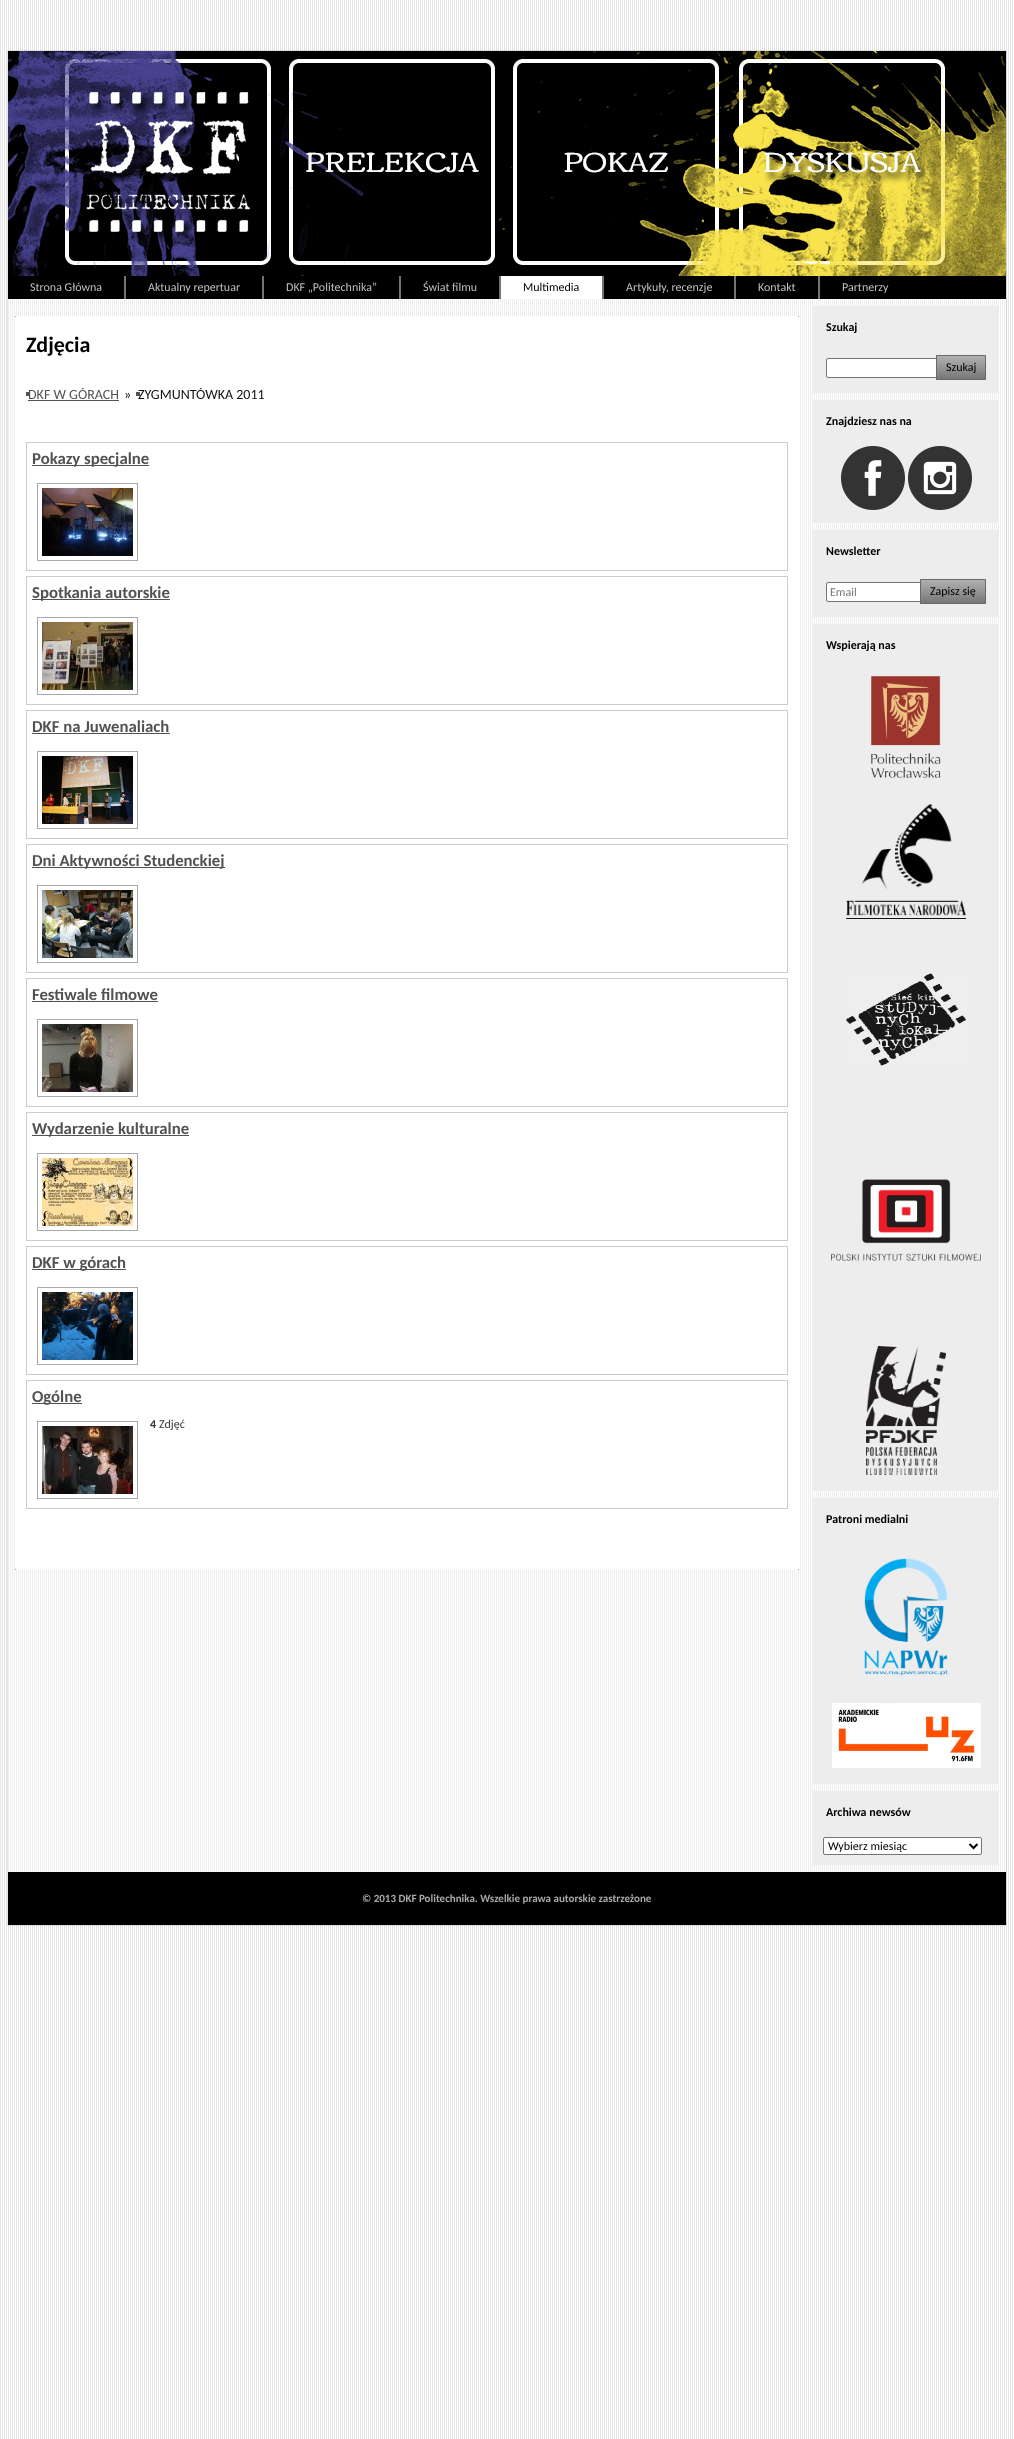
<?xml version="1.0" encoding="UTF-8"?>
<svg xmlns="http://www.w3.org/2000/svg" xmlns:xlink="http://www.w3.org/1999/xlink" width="1014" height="2439">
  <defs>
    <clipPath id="clip1"><rect x="26" y="388" width="110" height="14" /></clipPath>
    <clipPath id="clip2"><rect x="136" y="388" width="133" height="14" /></clipPath>
  </defs>
  <rect width="100%" height="100%" fill="#ffffff" />
  <image x="0" y="0" width="1014" height="2439" xlink:href="image1.png" />
  <rect x="7" y="50" width="1" height="1" fill="#eaeaea" />
  <rect x="8" y="50" width="998" height="1" fill="#a4a4a4" fill-opacity="0.3" />
  <rect x="1006" y="50" width="1" height="1" fill="#d6d6d6" />
  <rect x="7" y="51" width="1" height="1874" fill="#e4e4e4" />
  <image x="8" y="51" width="998" height="225" xlink:href="image2.png" />
  <rect x="8" y="276" width="998" height="23" fill="#000000" />
  <rect x="124" y="276" width="2" height="23" fill="#737373" />
  <rect x="262" y="276" width="2" height="23" fill="#737373" />
  <rect x="399" y="276" width="2" height="23" fill="#737373" />
  <rect x="499" y="276" width="2" height="23" fill="#737373" />
  <rect x="501" y="276" width="101" height="23" fill="#ffffff" />
  <rect x="602" y="276" width="2" height="23" fill="#737373" />
  <rect x="734" y="276" width="2" height="23" fill="#737373" />
  <rect x="818" y="276" width="2" height="23" fill="#737373" />
  <rect x="8" y="299" width="997" height="1573" fill="#ffffff" fill-opacity="0.3" />
  <rect x="15" y="316" width="1" height="1" fill="#b3b3b3" />
  <rect x="16" y="316" width="781" height="1" fill="#ffffff" />
  <rect x="798" y="316" width="1" height="1" fill="#b1b1b1" />
  <rect x="16" y="317" width="781" height="1253" fill="#ffffff" />
  <rect x="798" y="317" width="1" height="1252" fill="#ffffff" />
  <rect x="26" y="392" width="4" height="4" fill="#525252" />
  <rect x="28" y="400" width="91" height="1" fill="#525252" />
  <rect x="136" y="392" width="4" height="4" fill="#525252" />
  <rect x="26.5" y="442.5" width="761" height="128" fill="none" stroke="#cccccc" />
  <rect x="32" y="465" width="117" height="1" fill="#525252" />
  <rect x="37.5" y="483.5" width="100" height="77" fill="none" stroke="#a9a9a9" />
  <image x="42" y="488" width="91" height="68" xlink:href="image3.png" />
  <rect x="26.5" y="576.5" width="761" height="128" fill="none" stroke="#cccccc" />
  <rect x="32" y="599" width="138" height="1" fill="#525252" />
  <rect x="37.5" y="617.5" width="100" height="77" fill="none" stroke="#a9a9a9" />
  <image x="42" y="622" width="91" height="68" xlink:href="image4.png" />
  <rect x="26.5" y="710.5" width="761" height="128" fill="none" stroke="#cccccc" />
  <rect x="32" y="733" width="138" height="1" fill="#525252" />
  <rect x="37.5" y="751.5" width="100" height="77" fill="none" stroke="#a9a9a9" />
  <image x="42" y="756" width="91" height="68" xlink:href="image5.png" />
  <rect x="26.5" y="844.5" width="761" height="128" fill="none" stroke="#cccccc" />
  <rect x="32" y="867" width="193" height="1" fill="#525252" />
  <rect x="37.5" y="885.5" width="100" height="77" fill="none" stroke="#a9a9a9" />
  <image x="42" y="890" width="91" height="68" xlink:href="image6.png" />
  <rect x="26.5" y="978.5" width="761" height="128" fill="none" stroke="#cccccc" />
  <rect x="32" y="1001" width="126" height="1" fill="#525252" />
  <rect x="37.5" y="1019.5" width="100" height="77" fill="none" stroke="#a9a9a9" />
  <image x="42" y="1024" width="91" height="68" xlink:href="image7.png" />
  <rect x="26.5" y="1112.5" width="761" height="128" fill="none" stroke="#cccccc" />
  <rect x="32" y="1135" width="157" height="1" fill="#525252" />
  <rect x="37.5" y="1153.5" width="100" height="77" fill="none" stroke="#a9a9a9" />
  <image x="42" y="1158" width="91" height="68" xlink:href="image8.png" />
  <rect x="26.5" y="1246.5" width="761" height="128" fill="none" stroke="#cccccc" />
  <rect x="32" y="1269" width="94" height="1" fill="#525252" />
  <rect x="37.5" y="1287.5" width="100" height="77" fill="none" stroke="#a9a9a9" />
  <image x="42" y="1292" width="91" height="68" xlink:href="image9.png" />
  <rect x="26.5" y="1380.5" width="761" height="128" fill="none" stroke="#cccccc" />
  <rect x="32" y="1403" width="50" height="1" fill="#525252" />
  <rect x="37.5" y="1421.5" width="100" height="77" fill="none" stroke="#a9a9a9" />
  <image x="42" y="1426" width="91" height="68" xlink:href="image10.png" />
  <rect x="15" y="1569" width="1" height="1" fill="#a8a8a8" />
  <rect x="798" y="1569" width="1" height="1" fill="#a7a7a7" />
  <rect x="813" y="306" width="185" height="87" fill="#ededed" />
  <rect x="826.5" y="358.5" width="113" height="19" rx="1.5" fill="#ffffff" stroke="#767676" />
  <image x="936" y="355" width="49" height="25" xlink:href="image11.png" />
  <image x="985" y="355" width="1" height="25" xlink:href="image12.png" />
  <rect x="813" y="400" width="185" height="123" fill="#ededed" />
  <image x="841" y="446" width="64" height="64" xlink:href="image13.png" />
  <image x="908" y="446" width="64" height="64" xlink:href="image14.png" />
  <rect x="813" y="530" width="185" height="87" fill="#ededed" />
  <rect x="826.5" y="582.5" width="97" height="19" rx="1.5" fill="#ffffff" stroke="#767676" />
  <image x="920" y="579" width="65" height="25" xlink:href="image15.png" />
  <image x="985" y="579" width="1" height="25" xlink:href="image12.png" />
  <rect x="813" y="624" width="185" height="867" fill="#ededed" />
  <image x="871" y="676" width="70" height="102" xlink:href="image16.png" />
  <image x="846" y="804" width="120" height="115" xlink:href="image17.png" />
  <image x="846" y="973" width="120" height="93" xlink:href="image18.png" />
  <image x="831" y="1179" width="150" height="82" xlink:href="image19.png" />
  <image x="866" y="1346" width="80" height="129" xlink:href="image20.png" />
  <rect x="813" y="1498" width="185" height="286" fill="#ededed" />
  <image x="864" y="1558" width="84" height="118" xlink:href="image21.png" />
  <image x="832" y="1703" width="149" height="65" xlink:href="image22.png" />
  <rect x="813" y="1791" width="185" height="74" fill="#ededed" />
  <rect x="823.5" y="1837.5" width="158" height="17" rx="1.5" fill="#ffffff" stroke="#767676" />
  <path d="M 969.5 1844 l 4 4 l 4 -4" fill="none" stroke="#000000" stroke-width="2" />
  <rect x="8" y="1872" width="998" height="53" fill="#000000" />
  <rect x="1006" y="51" width="1" height="1874" fill="#d2d2d2" />
  <rect x="7" y="1925" width="1" height="1" fill="#e5e5e5" />
  <rect x="8" y="1925" width="998" height="1" fill="#a4a4a4" fill-opacity="0.3" />
  <rect x="1006" y="1925" width="1" height="1" fill="#d3d3d3" />
  <text x="30" y="291" style="font-family: Carlito; font-size: 12px; fill: #bfbfbf">Strona Główna</text>
  <text x="148" y="291" style="font-family: Carlito; font-size: 12px; fill: #bfbfbf">Aktualny repertuar</text>
  <text x="286" y="291" style="font-family: Carlito; font-size: 12px; fill: #bfbfbf">DKF „Politechnika”</text>
  <text x="423" y="291" style="font-family: Carlito; font-size: 12px; fill: #bfbfbf">Świat filmu</text>
  <text x="523" y="291" style="font-family: Carlito; font-size: 12px; fill: #000000">Multimedia</text>
  <text x="626" y="291" style="font-family: Carlito; font-size: 12px; fill: #bfbfbf">Artykuły, recenzje</text>
  <text x="758" y="291" style="font-family: Carlito; font-size: 12px; fill: #bfbfbf">Kontakt</text>
  <text x="842" y="291" style="font-family: Carlito; font-size: 12px; fill: #bfbfbf">Partnerzy</text>
  <text x="26" y="352" style="font-family: Carlito; font-size: 22px; font-weight: bold; fill: #000000">Zdjęcia</text>
  <g clip-path="url(#clip1)">
    <text x="28" y="399" style="font-family: Carlito; font-size: 14px; fill: #525252">DKF W GÓRACH</text>
  </g>
  <text x="124" y="399" style="font-family: Carlito; font-size: 14px; fill: #121212">»</text>
  <g clip-path="url(#clip2)">
    <text x="138" y="399" style="font-family: Carlito; font-size: 14px; fill: #121212">ZYGMUNTÓWKA 2011</text>
  </g>
  <text x="32" y="464" style="font-family: Carlito; font-size: 16.75px; font-weight: bold; fill: #525252">Pokazy specjalne</text>
  <text x="32" y="598" style="font-family: Carlito; font-size: 16.75px; font-weight: bold; fill: #525252">Spotkania autorskie</text>
  <text x="32" y="732" style="font-family: Carlito; font-size: 16.75px; font-weight: bold; fill: #525252">DKF na Juwenaliach</text>
  <text x="32" y="866" style="font-family: Carlito; font-size: 16.75px; font-weight: bold; fill: #525252">Dni Aktywności Studenckiej</text>
  <text x="32" y="1000" style="font-family: Carlito; font-size: 16.75px; font-weight: bold; fill: #525252">Festiwale filmowe</text>
  <text x="32" y="1134" style="font-family: Carlito; font-size: 16.75px; font-weight: bold; fill: #525252">Wydarzenie kulturalne</text>
  <text x="32" y="1268" style="font-family: Carlito; font-size: 16.75px; font-weight: bold; fill: #525252">DKF w górach</text>
  <text x="32" y="1402" style="font-family: Carlito; font-size: 16.75px; font-weight: bold; fill: #525252">Ogólne</text>
  <text x="150" y="1428" style="font-family: Carlito; font-size: 12px; font-weight: bold; fill: #383838">4</text>
  <text x="159" y="1428" style="font-family: Carlito; font-size: 12px; fill: #383838">Zdjęć</text>
  <text x="826" y="331" style="font-family: Carlito; font-size: 12px; font-weight: bold; fill: #000000">Szukaj</text>
  <text x="946" y="371" style="font-family: Carlito; font-size: 12px; fill: #000000">Szukaj</text>
  <text x="826" y="425" style="font-family: Carlito; font-size: 12px; font-weight: bold; fill: #000000">Znajdziesz nas na</text>
  <text x="826" y="555" style="font-family: Carlito; font-size: 12px; font-weight: bold; fill: #000000">Newsletter</text>
  <text x="830" y="596" style="font-family: Carlito; font-size: 12px; fill: #757575">Email</text>
  <text x="930" y="595" style="font-family: Carlito; font-size: 12px; fill: #000000">Zapisz się</text>
  <text x="826" y="649" style="font-family: Carlito; font-size: 12px; font-weight: bold; fill: #000000">Wspierają nas</text>
  <text x="826" y="1523" style="font-family: Carlito; font-size: 12px; font-weight: bold; fill: #000000">Patroni medialni</text>
  <text x="826" y="1816" style="font-family: Carlito; font-size: 12px; font-weight: bold; fill: #000000">Archiwa newsów</text>
  <text x="828" y="1850" style="font-family: Carlito; font-size: 12px; fill: #000000">Wybierz miesiąc</text>
  <text x="362" y="1902" style="font-family: Carlito; font-size: 11px; font-weight: bold; fill: #a8a8a8">© 2013 DKF Politechnika. Wszelkie prawa autorskie zastrzeżone</text>
</svg>
